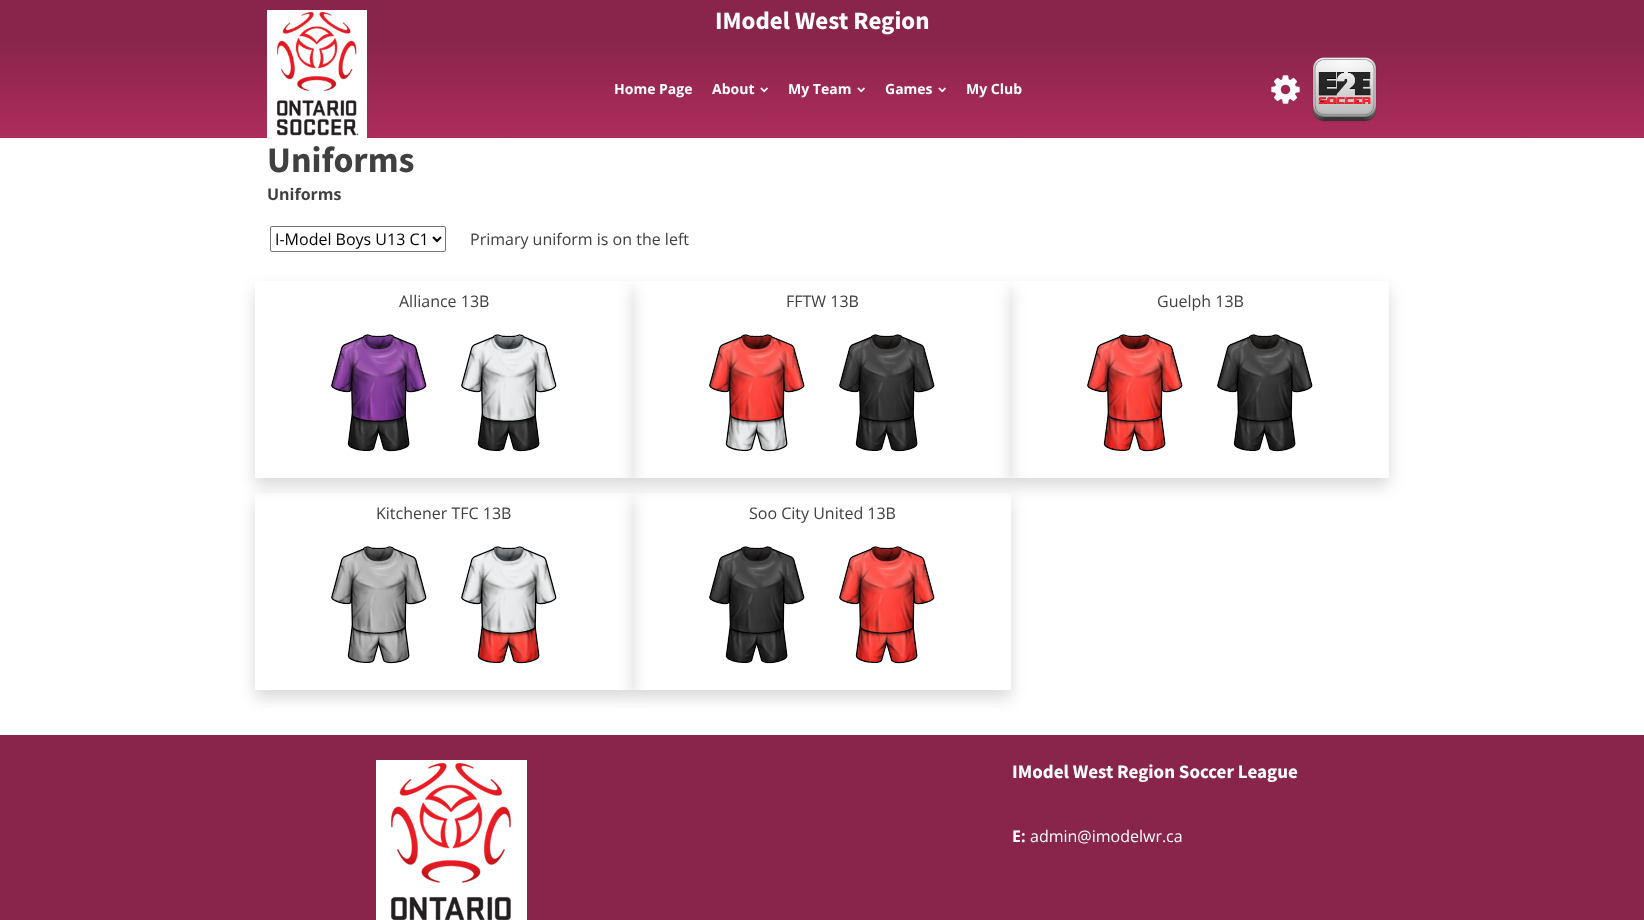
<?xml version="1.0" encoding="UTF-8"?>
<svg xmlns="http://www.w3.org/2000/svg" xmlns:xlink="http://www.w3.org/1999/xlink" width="1644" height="920">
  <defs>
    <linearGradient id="g1" gradientUnits="userSpaceOnUse" x1="822" y1="40" x2="822" y2="138"><stop offset="0" stop-color="#89254a" /><stop offset="1" stop-color="#ad2c5b" /></linearGradient>
    <clipPath id="clip1"><path d="M 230 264 h 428 v 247 h -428 z m 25 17 h 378 v 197 h -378 z" clip-rule="evenodd" /></clipPath>
    <clipPath id="clip2"><path d="M 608 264 h 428 v 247 h -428 z m 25 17 h 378 v 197 h -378 z" clip-rule="evenodd" /></clipPath>
    <clipPath id="clip3"><path d="M 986 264 h 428 v 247 h -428 z m 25 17 h 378 v 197 h -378 z" clip-rule="evenodd" /></clipPath>
    <clipPath id="clip4"><path d="M 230 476 h 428 v 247 h -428 z m 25 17 h 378 v 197 h -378 z" clip-rule="evenodd" /></clipPath>
    <clipPath id="clip5"><path d="M 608 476 h 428 v 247 h -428 z m 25 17 h 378 v 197 h -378 z" clip-rule="evenodd" /></clipPath>
  </defs>
  <rect width="100%" height="100%" fill="#ffffff" />
  <rect width="1644" height="40" fill="#89254a" />
  <rect y="40" width="1644" height="98" fill="url(#g1)" />
  <image x="267" y="10" width="100" height="128" xlink:href="image1.png" />
  <image x="760" y="87" width="8" height="6" xlink:href="image2.png" />
  <image x="857" y="87" width="8" height="6" xlink:href="image2.png" />
  <image x="938" y="87" width="8" height="6" xlink:href="image2.png" />
  <image x="1271" y="75" width="29" height="29" xlink:href="image3.png" />
  <image x="1312" y="57" width="65" height="65" xlink:href="image4.png" />
  <rect x="270.5" y="226.5" width="175" height="25" rx="1.5" fill="none" stroke="#767676" />
  <path d="M 433 237 l 4 4 l 4 -4" fill="none" stroke="#000000" stroke-width="2" />
  <g clip-path="url(#clip1)">
    <rect x="255" y="289" width="378" height="197" fill="#000000" fill-opacity="0.15" filter="blur(8px)" />
  </g>
  <image x="331" y="334" width="96" height="118" xlink:href="image5.png" />
  <image x="461" y="334" width="96" height="118" xlink:href="image6.png" />
  <g clip-path="url(#clip2)">
    <rect x="633" y="289" width="378" height="197" fill="#000000" fill-opacity="0.15" filter="blur(8px)" />
  </g>
  <image x="709" y="334" width="96" height="118" xlink:href="image7.png" />
  <image x="839" y="334" width="96" height="118" xlink:href="image8.png" />
  <g clip-path="url(#clip3)">
    <rect x="1011" y="289" width="378" height="197" fill="#000000" fill-opacity="0.15" filter="blur(8px)" />
  </g>
  <image x="1087" y="334" width="96" height="118" xlink:href="image9.png" />
  <image x="1217" y="334" width="96" height="118" xlink:href="image8.png" />
  <g clip-path="url(#clip4)">
    <rect x="255" y="501" width="378" height="197" fill="#000000" fill-opacity="0.15" filter="blur(8px)" />
  </g>
  <image x="331" y="546" width="96" height="118" xlink:href="image10.png" />
  <image x="461" y="546" width="96" height="118" xlink:href="image11.png" />
  <g clip-path="url(#clip5)">
    <rect x="633" y="501" width="378" height="197" fill="#000000" fill-opacity="0.15" filter="blur(8px)" />
  </g>
  <image x="709" y="546" width="96" height="118" xlink:href="image8.png" />
  <image x="839" y="546" width="96" height="118" xlink:href="image9.png" />
  <rect y="735" width="1644" height="185" fill="#89254a" />
  <image x="376" y="760" width="151" height="160" xlink:href="image12.png" />
  <text x="715" y="29" style="font-family: Source Sans Pro; font-size: 25px; font-weight: bold; fill: #ffffff">IModel West Region</text>
  <text x="614" y="94" style="font-family: Open Sans; font-size: 14px; font-weight: bold; fill: #ffffff">Home Page</text>
  <text x="712" y="94" style="font-family: Open Sans; font-size: 14px; font-weight: bold; fill: #ffffff">About</text>
  <text x="788" y="94" style="font-family: Open Sans; font-size: 14px; font-weight: bold; fill: #ffffff">My Team</text>
  <text x="885" y="94" style="font-family: Open Sans; font-size: 14px; font-weight: bold; fill: #ffffff">Games</text>
  <text x="966" y="94" style="font-family: Open Sans; font-size: 14px; font-weight: bold; fill: #ffffff">My Club</text>
  <text x="267" y="172" style="font-family: Source Sans Pro; font-size: 36px; font-weight: bold; fill: #404040">Uniforms</text>
  <text x="267" y="200" style="font-family: Open Sans; font-size: 16px; font-weight: bold; fill: #404040">Uniforms</text>
  <text x="275" y="245" style="font-family: Open Sans; font-size: 16px; fill: #000000">I-Model Boys U13 C1</text>
  <text x="470" y="245" style="font-family: Open Sans; font-size: 16px; fill: #404040">Primary uniform is on the left</text>
  <text x="399" y="307" style="font-family: Open Sans; font-size: 16px; fill: #404040">Alliance 13B</text>
  <text x="786" y="307" style="font-family: Open Sans; font-size: 16px; fill: #404040">FFTW 13B</text>
  <text x="1157" y="307" style="font-family: Open Sans; font-size: 16px; fill: #404040">Guelph 13B</text>
  <text x="376" y="519" style="font-family: Open Sans; font-size: 16px; fill: #404040">Kitchener TFC 13B</text>
  <text x="749" y="519" style="font-family: Open Sans; font-size: 16px; fill: #404040">Soo City United 13B</text>
  <text x="1012" y="778" style="font-family: Source Sans Pro; font-size: 19px; font-weight: bold; fill: #ffffff">IModel West Region Soccer League</text>
  <text x="1012" y="842" style="font-family: Open Sans; font-size: 16px; font-weight: bold; fill: #ffffff">E:</text>
  <text x="1030" y="842" style="font-family: Open Sans; font-size: 16px; fill: #ffffff">admin@imodelwr.ca</text>
</svg>
